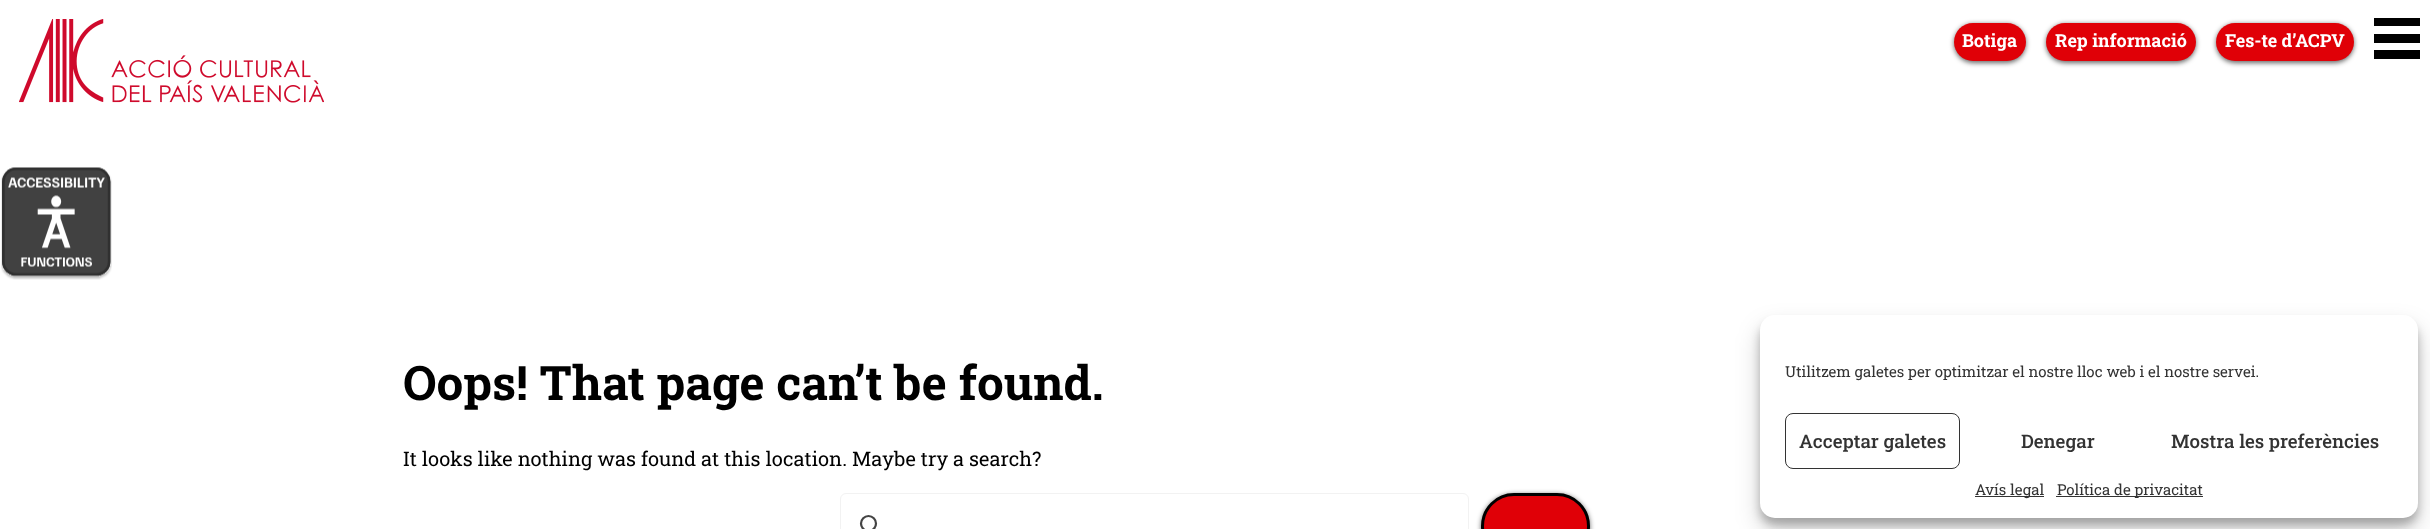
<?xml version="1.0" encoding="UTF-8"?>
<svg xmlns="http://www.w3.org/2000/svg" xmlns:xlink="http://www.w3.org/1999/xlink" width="2430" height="529">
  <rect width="100%" height="100%" fill="#ffffff" />
  <image x="19" y="19" width="305" height="84" xlink:href="image1.png" />
  <rect x="1954" y="24" width="72" height="39" rx="19.5" fill="#000000" fill-opacity="0.6" filter="blur(2.5px)" />
  <rect x="1954" y="23" width="72" height="38" rx="19" fill="#e00007" />
  <rect x="2046" y="24" width="150" height="39" rx="19.5" fill="#000000" fill-opacity="0.6" filter="blur(2.5px)" />
  <rect x="2046" y="23" width="150" height="38" rx="19" fill="#e00007" />
  <rect x="2216" y="24" width="138" height="39" rx="19.5" fill="#000000" fill-opacity="0.6" filter="blur(2.5px)" />
  <rect x="2216" y="23" width="138" height="38" rx="19" fill="#e00007" />
  <rect x="2374" y="18" width="46" height="8" fill="#000000" />
  <rect x="2374" y="34" width="46" height="9" fill="#000000" />
  <rect x="2374" y="50" width="46" height="9" fill="#000000" />
  <image x="1" y="167" width="111" height="113" xlink:href="image2.png" />
  <path d="M 879 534 l -5.5 -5.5" fill="none" stroke="#444444" stroke-width="2.2" />
  <circle cx="868.5" cy="523.5" r="7.5" fill="none" stroke="#444444" stroke-width="2.2" />
  <rect x="840.5" y="493.5" width="628" height="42" rx="5.5" fill="none" stroke="#f2f2f2" />
  <rect x="1481" y="494" width="109" height="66" rx="33" fill="#000000" fill-opacity="0.6" filter="blur(2.5px)" />
  <rect x="1482.5" y="494.5" width="106" height="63" rx="31.5" fill="#e00007" stroke="#000000" stroke-width="3" />
  <rect x="1760" y="323" width="658" height="202" rx="15" fill="#000000" fill-opacity="0.23" filter="blur(4px)" />
  <rect x="1760" y="328" width="658" height="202" rx="15" fill="#000000" fill-opacity="0.19" filter="blur(12.5px)" />
  <rect x="1760" y="315" width="658" height="203" rx="15" fill="#ffffff" />
  <rect x="1785.5" y="413.5" width="174" height="55" rx="7.5" fill="none" stroke="#333333" />
  <rect x="1975" y="496" width="69" height="1" fill="#333333" />
  <rect x="2056" y="496" width="147" height="1" fill="#333333" />
  <text x="1962" y="47" style="font-family: Roboto Slab; font-size: 18px; font-weight: bold; fill: #ffffff">Botiga</text>
  <text x="2055" y="47" style="font-family: Roboto Slab; font-size: 18px; font-weight: bold; fill: #ffffff">Rep informació</text>
  <text x="2225" y="47" style="font-family: Roboto Slab; font-size: 18px; font-weight: bold; fill: #ffffff">Fes-te d’ACPV</text>
  <text x="403" y="400" style="font-family: Roboto Slab; font-size: 47.5px; font-weight: bold; fill: #000000">Oops! That page can’t be found.</text>
  <text x="403" y="466" style="font-family: Roboto Slab; font-size: 20px; fill: #000000">It looks like nothing was found at this location. Maybe try a search?</text>
  <text x="1785" y="377" style="font-family: Roboto Slab; font-size: 15px; fill: #333333">Utilitzem galetes per optimitzar el nostre lloc web i el nostre servei.</text>
  <text x="1799" y="448" style="font-family: Roboto Slab; font-size: 18.75px; font-weight: 500; fill: #333333">Acceptar galetes</text>
  <text x="2021" y="448" style="font-family: Roboto Slab; font-size: 18.75px; font-weight: 500; fill: #333333">Denegar</text>
  <text x="2171" y="448" style="font-family: Roboto Slab; font-size: 18.75px; font-weight: 500; fill: #333333">Mostra les preferències</text>
  <text x="1975" y="495" style="font-family: Roboto Slab; font-size: 15px; fill: #333333">Avís legal</text>
  <text x="2057" y="495" style="font-family: Roboto Slab; font-size: 15px; fill: #333333">Política de privacitat</text>
</svg>
